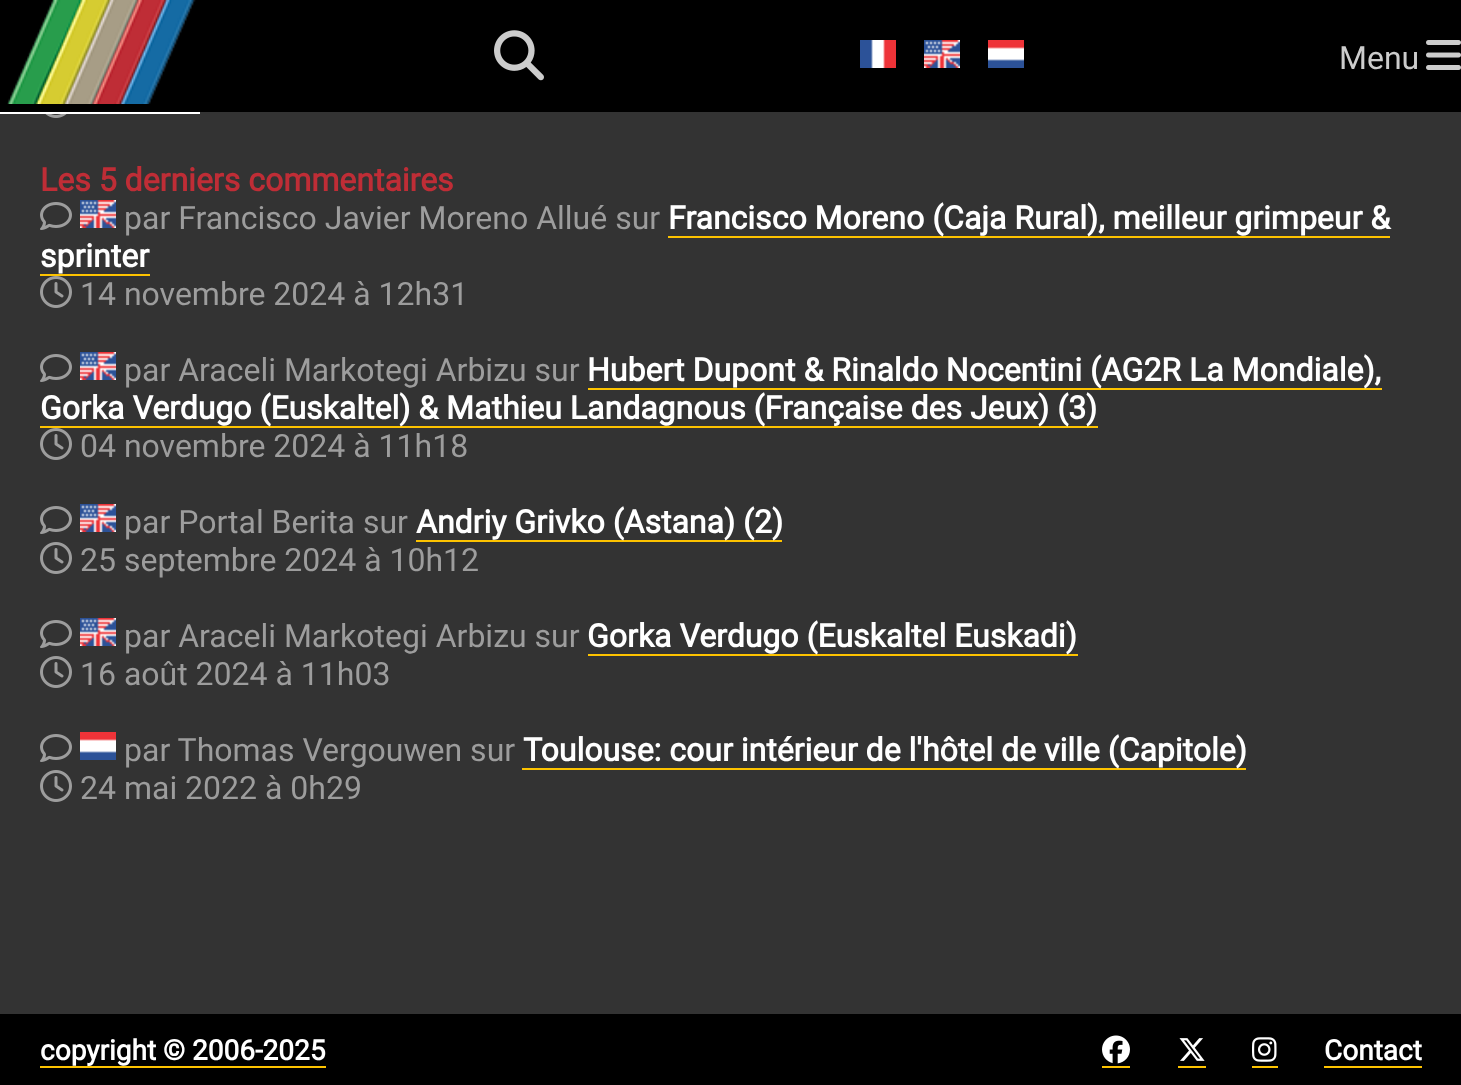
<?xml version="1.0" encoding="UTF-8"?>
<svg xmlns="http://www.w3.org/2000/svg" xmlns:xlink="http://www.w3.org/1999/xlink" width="1461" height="1085">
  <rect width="100%" height="100%" fill="#333333" />
  <rect width="1461" height="112" fill="#000000" />
  <image x="7" y="0" width="189" height="104" xlink:href="image1.png" />
  <rect y="112" width="200" height="2" fill="#ffffff" />
  <image x="494" y="30" width="50" height="51" xlink:href="image2.png" />
  <image x="860" y="40" width="36" height="28" xlink:href="image3.png" />
  <image x="924" y="40" width="36" height="28" xlink:href="image4.png" />
  <image x="988" y="40" width="36" height="28" xlink:href="image5.png" />
  <image x="1426" y="40" width="35" height="30" xlink:href="image6.png" />
  <image x="45" y="114" width="22" height="4" xlink:href="image7.png" />
  <image x="40" y="202" width="32" height="28" xlink:href="image8.png" />
  <image x="80" y="200" width="36" height="28" xlink:href="image4.png" />
  <rect x="668" y="236" width="722" height="2" fill="#fdc300" />
  <rect x="40" y="274" width="110" height="2" fill="#fdc300" />
  <image x="40" y="276" width="32" height="32" xlink:href="image9.png" />
  <image x="40" y="354" width="32" height="28" xlink:href="image8.png" />
  <image x="80" y="352" width="36" height="28" xlink:href="image4.png" />
  <rect x="588" y="388" width="794" height="2" fill="#fdc300" />
  <rect x="40" y="426" width="1058" height="2" fill="#fdc300" />
  <image x="40" y="428" width="32" height="32" xlink:href="image9.png" />
  <image x="40" y="506" width="32" height="28" xlink:href="image8.png" />
  <image x="80" y="504" width="36" height="28" xlink:href="image4.png" />
  <rect x="416" y="540" width="366" height="2" fill="#fdc300" />
  <image x="40" y="542" width="32" height="32" xlink:href="image9.png" />
  <image x="40" y="620" width="32" height="28" xlink:href="image8.png" />
  <image x="80" y="618" width="36" height="28" xlink:href="image4.png" />
  <rect x="588" y="654" width="490" height="2" fill="#fdc300" />
  <image x="40" y="656" width="32" height="32" xlink:href="image9.png" />
  <image x="40" y="734" width="32" height="28" xlink:href="image8.png" />
  <image x="80" y="732" width="36" height="28" xlink:href="image5.png" />
  <rect x="522" y="768" width="724" height="2" fill="#fdc300" />
  <image x="40" y="770" width="32" height="32" xlink:href="image9.png" />
  <rect y="1014" width="1461" height="71" fill="#000000" />
  <rect x="40" y="1066" width="286" height="2" fill="#fdc300" />
  <rect x="1102" y="1066" width="28" height="2" fill="#fdc300" />
  <image x="1102" y="1035" width="28" height="29" xlink:href="image10.png" />
  <rect x="1178" y="1066" width="28" height="2" fill="#fdc300" />
  <image x="1179" y="1038" width="26" height="23" xlink:href="image11.png" />
  <rect x="1252" y="1066" width="26" height="2" fill="#fdc300" />
  <image x="1252" y="1037" width="25" height="25" xlink:href="image12.png" />
  <rect x="1324" y="1066" width="98" height="2" fill="#fdc300" />
  <text x="1339" y="69" style="font-family: Roboto; font-size: 32px; fill: #cccccc">Menu</text>
  <text x="40" y="191" style="font-family: Roboto; font-size: 32px; font-weight: bold; fill: #bf2d36">Les 5 derniers commentaires</text>
  <text x="124" y="229" style="font-family: Roboto; font-size: 32px; fill: #9d9d9d">par Francisco Javier Moreno Allué sur</text>
  <text x="668" y="229" style="font-family: Roboto; font-size: 32px; font-weight: bold; fill: #ffffff">Francisco Moreno (Caja Rural), meilleur grimpeur &amp;</text>
  <text x="40" y="267" style="font-family: Roboto; font-size: 32px; font-weight: bold; fill: #ffffff">sprinter</text>
  <text x="80" y="305" style="font-family: Roboto; font-size: 32px; fill: #9d9d9d">14 novembre 2024 à 12h31</text>
  <text x="124" y="381" style="font-family: Roboto; font-size: 32px; fill: #9d9d9d">par Araceli Markotegi Arbizu sur</text>
  <text x="587" y="381" style="font-family: Roboto; font-size: 32px; font-weight: bold; fill: #ffffff">Hubert Dupont &amp; Rinaldo Nocentini (AG2R La Mondiale),</text>
  <text x="40" y="419" style="font-family: Roboto; font-size: 32px; font-weight: bold; fill: #ffffff">Gorka Verdugo (Euskaltel) &amp; Mathieu Landagnous (Française des Jeux) (3)</text>
  <text x="80" y="457" style="font-family: Roboto; font-size: 32px; fill: #9d9d9d">04 novembre 2024 à 11h18</text>
  <text x="124" y="533" style="font-family: Roboto; font-size: 32px; fill: #9d9d9d">par Portal Berita sur</text>
  <text x="416" y="533" style="font-family: Roboto; font-size: 32px; font-weight: bold; fill: #ffffff">Andriy Grivko (Astana) (2)</text>
  <text x="80" y="571" style="font-family: Roboto; font-size: 32px; fill: #9d9d9d">25 septembre 2024 à 10h12</text>
  <text x="124" y="647" style="font-family: Roboto; font-size: 32px; fill: #9d9d9d">par Araceli Markotegi Arbizu sur</text>
  <text x="587" y="647" style="font-family: Roboto; font-size: 32px; font-weight: bold; fill: #ffffff">Gorka Verdugo (Euskaltel Euskadi)</text>
  <text x="80" y="685" style="font-family: Roboto; font-size: 32px; fill: #9d9d9d">16 août 2024 à 11h03</text>
  <text x="124" y="761" style="font-family: Roboto; font-size: 32px; fill: #9d9d9d">par Thomas Vergouwen sur</text>
  <text x="523" y="761" style="font-family: Roboto; font-size: 32px; font-weight: bold; fill: #ffffff">Toulouse: cour intérieur de l'hôtel de ville (Capitole)</text>
  <text x="80" y="799" style="font-family: Roboto; font-size: 32px; fill: #9d9d9d">24 mai 2022 à 0h29</text>
  <text x="40" y="1060" style="font-family: Roboto; font-size: 28px; font-weight: bold; fill: #ffffff">copyright © 2006-2025</text>
  <text x="1324" y="1060" style="font-family: Roboto; font-size: 28px; font-weight: bold; fill: #ffffff">Contact</text>
</svg>
